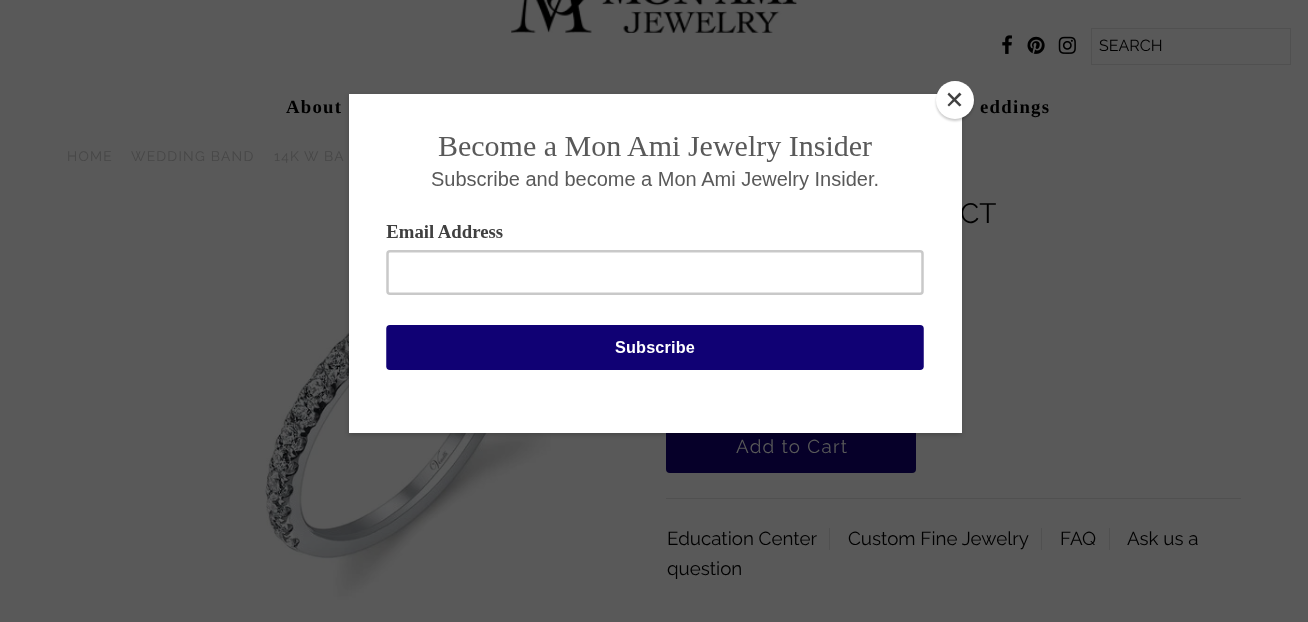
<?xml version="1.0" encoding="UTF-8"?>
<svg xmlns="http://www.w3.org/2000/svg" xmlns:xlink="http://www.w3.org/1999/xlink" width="1308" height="622">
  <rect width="100%" height="100%" fill="#595959" />
  <image x="511" y="0" width="286" height="33" xlink:href="image1.png" />
  <image x="1002" y="35" width="10" height="19" xlink:href="image2.png" />
  <image x="1027" y="36" width="18" height="18" xlink:href="image3.png" />
  <image x="1058" y="36" width="18" height="18" xlink:href="image4.png" />
  <rect x="1091.5" y="28.5" width="199" height="36" fill="none" stroke="#505050" />
  <image x="264" y="272" width="287" height="328" xlink:href="image5.png" />
  <rect x="666" y="498" width="575" height="1" fill="#505050" />
  <rect x="666" y="423" width="250" height="50" rx="4" fill="#060029" />
  <rect x="829" y="528" width="1" height="22" fill="#505050" />
  <rect x="1041" y="528" width="1" height="22" fill="#505050" />
  <rect x="1109" y="528" width="1" height="22" fill="#505050" />
  <rect x="349" y="96" width="612" height="339" fill="#000000" fill-opacity="0.2" filter="blur(2.5px)" />
  <text x="1099" y="51" style="font-family: Raleway; font-size: 16px; fill: #000000">SEARCH</text>
  <text x="286" y="113" style="font-family: Liberation Serif; font-size: 18.75px; font-weight: bold; letter-spacing: 1.25px; fill: #000000">About</text>
  <text x="980" y="113" style="font-family: Liberation Serif; font-size: 18.75px; font-weight: bold; letter-spacing: 1.25px; fill: #000000">eddings</text>
  <text x="67" y="161" style="font-family: Raleway; font-size: 13.75px; letter-spacing: 1.25px; fill: #474747">HOME</text>
  <text x="131" y="161" style="font-family: Raleway; font-size: 13.75px; letter-spacing: 1.25px; fill: #474747">WEDDING BAND</text>
  <text x="274" y="161" style="font-family: Raleway; font-size: 13.75px; letter-spacing: 1.25px; fill: #474747">14K W BA</text>
  <text x="960" y="223" style="font-family: Raleway; font-size: 28px; fill: #000000">CT</text>
  <text x="736" y="453" style="font-family: Raleway; font-size: 18.75px; letter-spacing: 1.25px; fill: #595959">Add to Cart</text>
  <text x="667" y="545" style="font-family: Raleway; font-size: 18.75px; fill: #000000">Education Center</text>
  <text x="848" y="545" style="font-family: Raleway; font-size: 18.75px; fill: #000000">Custom Fine Jewelry</text>
  <text x="1060" y="545" style="font-family: Raleway; font-size: 18.75px; fill: #000000">FAQ</text>
  <text x="1127" y="545" style="font-family: Raleway; font-size: 18.75px; fill: #000000">Ask us a</text>
  <text x="667" y="575" style="font-family: Raleway; font-size: 18.75px; fill: #000000">question</text>
  <image x="349" y="94" width="613" height="339" xlink:href="image6.png" />
  <rect x="936" y="84" width="38" height="37" rx="18.5" fill="#000000" fill-opacity="0.2" filter="blur(1px)" />
  <circle cx="955" cy="100" r="19" fill="#ffffff" />
  <path d="M 959.5 92.5 l 2 2 l -12.5 12 l -1.5 -1.5 z" fill="#414141" />
  <path d="M 947.5 94.5 l 1.5 -2 l 12.5 12.5 l -2 1.5 z" fill="#414141" />
</svg>
